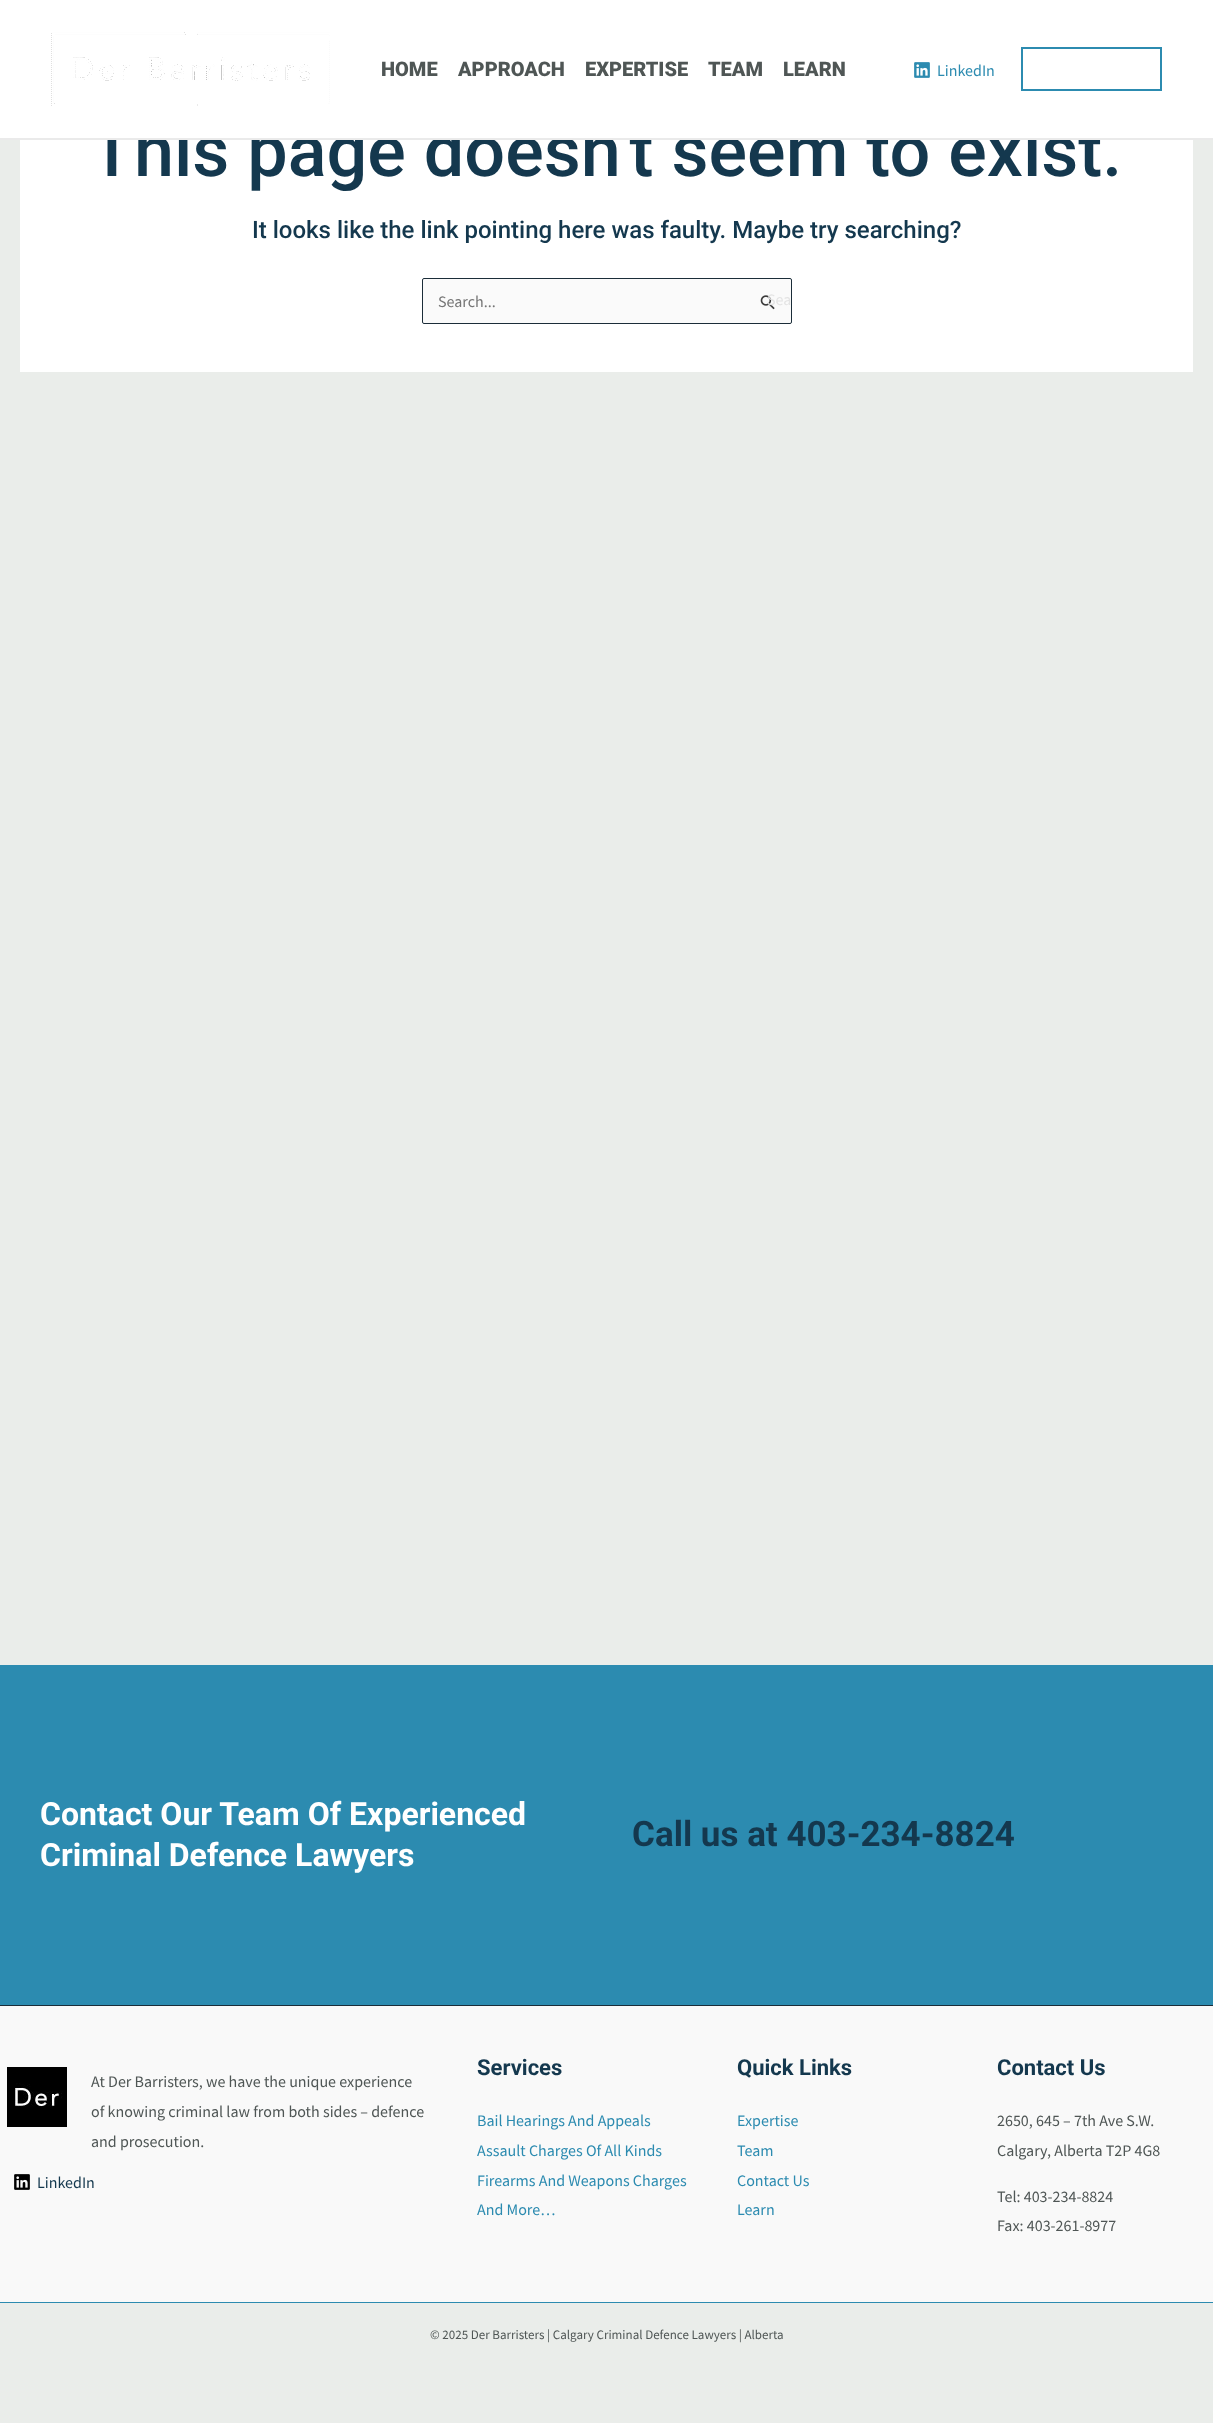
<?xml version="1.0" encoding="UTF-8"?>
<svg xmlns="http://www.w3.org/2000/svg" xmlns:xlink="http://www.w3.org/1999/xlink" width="1213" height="2423">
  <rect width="100%" height="100%" fill="#eaedea" />
  <rect x="20" y="140" width="1173" height="232" fill="#ffffff" />
  <rect x="422.5" y="278.5" width="369" height="45" rx="1.5" fill="#fafafa" stroke="#1b2d39" />
  <image x="760" y="295" width="15" height="15" xlink:href="image3.png" />
  <rect y="1665" width="1213" height="340" fill="#2c8bb0" />
  <rect y="2006" width="1213" height="296" fill="#f9f9f9" />
  <rect y="2005" width="1213" height="1" fill="#1b2d39" />
  <image x="7" y="2067" width="60" height="60" xlink:href="image4.png" />
  <image x="14" y="2174" width="16" height="16" xlink:href="image5.png" />
  <rect y="2302" width="1213" height="1" fill="#2c8bb0" />
  <text x="90" y="176" style="font-family: Roboto; font-size: 72px; font-weight: 500; fill: #14384e">This page doesn't seem to exist.</text>
  <rect width="1213" height="138" fill="#ffffff" />
  <text x="783" y="76" style="font-family: Roboto; font-size: 20px; font-weight: 900; fill: #4f5655">LEARN</text>
  <text x="708" y="76" style="font-family: Roboto; font-size: 20px; font-weight: 900; fill: #4f5655">TEAM</text>
  <text x="585" y="76" style="font-family: Roboto; font-size: 20px; font-weight: 900; fill: #4f5655">EXPERTISE</text>
  <text x="458" y="76" style="font-family: Roboto; font-size: 20px; font-weight: 900; fill: #4f5655">APPROACH</text>
  <text x="381" y="76" style="font-family: Roboto; font-size: 20px; font-weight: 900; fill: #4f5655">HOME</text>
  <image x="914" y="62" width="16" height="16" xlink:href="image2.png" />
  <rect x="1022" y="48" width="139" height="42" fill="none" stroke="#2c8bb0" stroke-width="2" />
  <text x="937" y="76" style="font-family: Source Sans Pro; font-size: 16px; fill: #2c8bb0">LinkedIn</text>
  <image x="51" y="32" width="279" height="74" xlink:href="image1.png" />
  <rect y="138" width="1213" height="2" fill="#eaeaea" />
  <text x="252" y="238" style="font-family: Roboto; font-size: 24px; font-weight: 500; fill: #14384e">It looks like the link pointing here was faulty. Maybe try searching?</text>
  <text x="438" y="307" style="font-family: Source Sans Pro; font-size: 16px; fill: #757575">Search...</text>
  <text x="767" y="305" style="font-family: Source Sans Pro; font-size: 16px; fill: #e4e4e4">Sea</text>
  <text x="40" y="1825" style="font-family: Roboto; font-size: 32px; font-weight: bold; fill: #ffffff">Contact Our Team Of Experienced</text>
  <text x="40" y="1866" style="font-family: Roboto; font-size: 32px; font-weight: bold; fill: #ffffff">Criminal Defence Lawyers</text>
  <text x="632" y="1846" style="font-family: Roboto; font-size: 35px; font-weight: bold; fill: #14384e">Call us at 403-234-8824</text>
  <text x="91" y="2087" style="font-family: Source Sans Pro; font-size: 16px; fill: #4f5655">At Der Barristers, we have the unique experience</text>
  <text x="91" y="2117" style="font-family: Source Sans Pro; font-size: 16px; fill: #4f5655">of knowing criminal law from both sides – defence</text>
  <text x="91" y="2147" style="font-family: Source Sans Pro; font-size: 16px; fill: #4f5655">and prosecution.</text>
  <text x="37" y="2188" style="font-family: Source Sans Pro; font-size: 16px; fill: #14384e">LinkedIn</text>
  <text x="477" y="2075" style="font-family: Roboto; font-size: 22px; font-weight: bold; fill: #14384e">Services</text>
  <text x="477" y="2126" style="font-family: Source Sans Pro; font-size: 16px; fill: #2c8bb0">Bail Hearings And Appeals</text>
  <text x="477" y="2156" style="font-family: Source Sans Pro; font-size: 16px; fill: #2c8bb0">Assault Charges Of All Kinds</text>
  <text x="477" y="2186" style="font-family: Source Sans Pro; font-size: 16px; fill: #2c8bb0">Firearms And Weapons Charges</text>
  <text x="477" y="2215" style="font-family: Source Sans Pro; font-size: 16px; fill: #2c8bb0">And More…</text>
  <text x="737" y="2075" style="font-family: Roboto; font-size: 22px; font-weight: bold; fill: #14384e">Quick Links</text>
  <text x="737" y="2126" style="font-family: Source Sans Pro; font-size: 16px; fill: #2c8bb0">Expertise</text>
  <text x="737" y="2156" style="font-family: Source Sans Pro; font-size: 16px; fill: #2c8bb0">Team</text>
  <text x="737" y="2186" style="font-family: Source Sans Pro; font-size: 16px; fill: #2c8bb0">Contact Us</text>
  <text x="737" y="2215" style="font-family: Source Sans Pro; font-size: 16px; fill: #2c8bb0">Learn</text>
  <text x="997" y="2075" style="font-family: Roboto; font-size: 22px; font-weight: bold; fill: #14384e">Contact Us</text>
  <text x="997" y="2126" style="font-family: Source Sans Pro; font-size: 16px; fill: #4f5655">2650, 645 – 7th Ave S.W.</text>
  <text x="997" y="2156" style="font-family: Source Sans Pro; font-size: 16px; fill: #4f5655">Calgary</text>
  <text x="1047" y="2156" style="font-family: Source Sans Pro; font-size: 16px; fill: #4f5655">, Alberta T2P 4G8</text>
  <text x="997" y="2202" style="font-family: Source Sans Pro; font-size: 16px; fill: #4f5655">Tel: 403-234-8824</text>
  <text x="997" y="2231" style="font-family: Source Sans Pro; font-size: 16px; fill: #4f5655">Fax: 403-261-8977</text>
  <text x="430" y="2339" style="font-family: Source Sans Pro; font-size: 13px; fill: #4f5655">© 2025 Der Barristers | Calgary Criminal Defence Lawyers | Alberta</text>
</svg>
